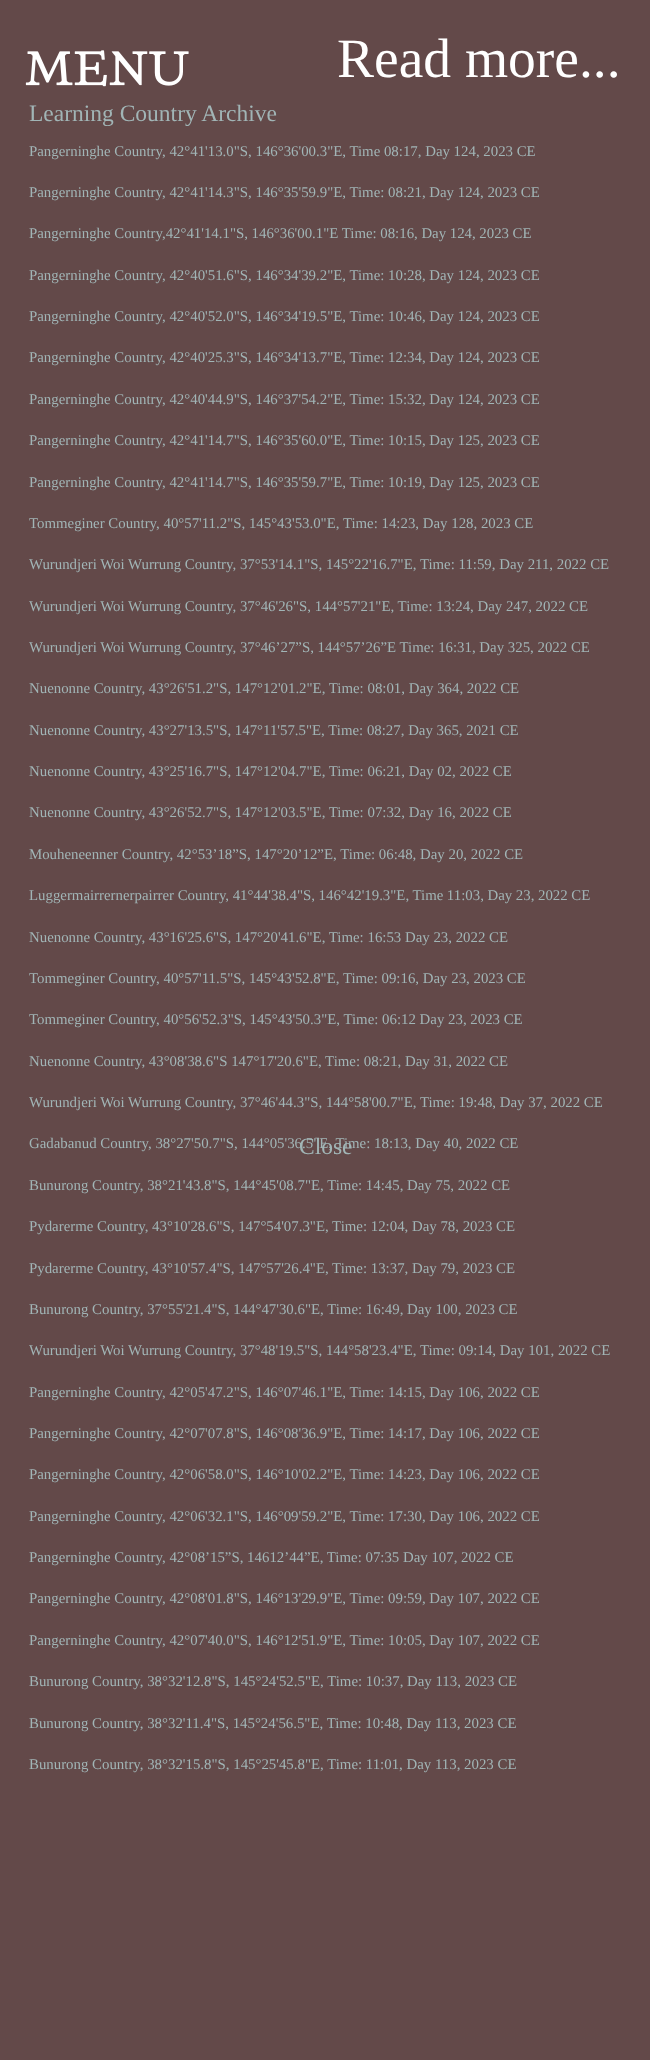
<?xml version="1.0" encoding="UTF-8"?>
<svg xmlns="http://www.w3.org/2000/svg" xmlns:xlink="http://www.w3.org/1999/xlink" width="650" height="2060">
  <rect width="100%" height="100%" fill="#634949" />
  <image x="25" y="50" width="164" height="37" xlink:href="image1.png" />
  <text x="337" y="77" style="font-family: Liberation Serif; font-size: 55.5px; fill: #ffffff">Read more...</text>
  <text x="29" y="121" style="font-family: Liberation Serif; font-size: 23.5px; fill: #a1b5b6">Learning Country Archive</text>
  <text x="29" y="156" style="font-family: Liberation Serif; font-size: 14.85px; fill: #a1b5b6">Pangerninghe Country, 42°41'13.0"S, 146°36'00.3"E, Time 08:17, Day 124, 2023 CE</text>
  <text x="29" y="197" style="font-family: Liberation Serif; font-size: 14.85px; fill: #a1b5b6">Pangerninghe Country, 42°41'14.3"S, 146°35'59.9"E, Time: 08:21, Day 124, 2023 CE</text>
  <text x="29" y="238" word-spacing="-0.1" style="font-family: Liberation Serif; font-size: 14.85px; fill: #a1b5b6">Pangerninghe Country,42°41'14.1"S, 146°36'00.1"E Time: 08:16, Day 124, 2023 CE</text>
  <text x="29" y="280" style="font-family: Liberation Serif; font-size: 14.85px; fill: #a1b5b6">Pangerninghe Country, 42°40'51.6"S, 146°34'39.2"E, Time: 10:28, Day 124, 2023 CE</text>
  <text x="29" y="321" style="font-family: Liberation Serif; font-size: 14.85px; fill: #a1b5b6">Pangerninghe Country, 42°40'52.0"S, 146°34'19.5"E, Time: 10:46, Day 124, 2023 CE</text>
  <text x="29" y="362" style="font-family: Liberation Serif; font-size: 14.85px; fill: #a1b5b6">Pangerninghe Country, 42°40'25.3"S, 146°34'13.7"E, Time: 12:34, Day 124, 2023 CE</text>
  <text x="29" y="404" style="font-family: Liberation Serif; font-size: 14.85px; fill: #a1b5b6">Pangerninghe Country, 42°40'44.9"S, 146°37'54.2"E, Time: 15:32, Day 124, 2023 CE</text>
  <text x="29" y="445" style="font-family: Liberation Serif; font-size: 14.85px; fill: #a1b5b6">Pangerninghe Country, 42°41'14.7"S, 146°35'60.0"E, Time: 10:15, Day 125, 2023 CE</text>
  <text x="29" y="487" style="font-family: Liberation Serif; font-size: 14.85px; fill: #a1b5b6">Pangerninghe Country, 42°41'14.7"S, 146°35'59.7"E, Time: 10:19, Day 125, 2023 CE</text>
  <text x="29" y="528" style="font-family: Liberation Serif; font-size: 14.85px; fill: #a1b5b6">Tommeginer Country, 40°57'11.2"S, 145°43'53.0"E, Time: 14:23, Day 128, 2023 CE</text>
  <text x="29" y="569" style="font-family: Liberation Serif; font-size: 14.85px; fill: #a1b5b6">Wurundjeri Woi Wurrung Country, 37°53'14.1"S, 145°22'16.7"E, Time: 11:59, Day 211, 2022 CE</text>
  <text x="29" y="611" style="font-family: Liberation Serif; font-size: 14.85px; fill: #a1b5b6">Wurundjeri Woi Wurrung Country, 37°46'26"S, 144°57'21"E, Time: 13:24, Day 247, 2022 CE</text>
  <text x="29" y="652" style="font-family: Liberation Serif; font-size: 14.85px; fill: #a1b5b6">Wurundjeri Woi Wurrung Country, 37°46’27”S, 144°57’26”E Time: 16:31, Day 325, 2022 CE</text>
  <text x="29" y="693" style="font-family: Liberation Serif; font-size: 14.85px; fill: #a1b5b6">Nuenonne Country, 43°26'51.2"S, 147°12'01.2"E, Time: 08:01, Day 364, 2022 CE</text>
  <text x="29" y="735" style="font-family: Liberation Serif; font-size: 14.85px; fill: #a1b5b6">Nuenonne Country, 43°27'13.5"S, 147°11'57.5"E, Time: 08:27, Day 365, 2021 CE</text>
  <text x="29" y="776" style="font-family: Liberation Serif; font-size: 14.85px; fill: #a1b5b6">Nuenonne Country, 43°25'16.7"S, 147°12'04.7"E, Time: 06:21, Day 02, 2022 CE</text>
  <text x="29" y="817" style="font-family: Liberation Serif; font-size: 14.85px; fill: #a1b5b6">Nuenonne Country, 43°26'52.7"S, 147°12'03.5"E, Time: 07:32, Day 16, 2022 CE</text>
  <text x="29" y="859" style="font-family: Liberation Serif; font-size: 14.85px; fill: #a1b5b6">Mouheneenner Country, 42°53’18”S, 147°20’12”E, Time: 06:48, Day 20, 2022 CE</text>
  <text x="29" y="900" word-spacing="-0.1" style="font-family: Liberation Serif; font-size: 14.85px; fill: #a1b5b6">Luggermairrernerpairrer Country, 41°44'38.4"S, 146°42'19.3"E, Time 11:03, Day 23, 2022 CE</text>
  <text x="29" y="942" style="font-family: Liberation Serif; font-size: 14.85px; fill: #a1b5b6">Nuenonne Country, 43°16'25.6"S, 147°20'41.6"E, Time: 16:53 Day 23, 2022 CE</text>
  <text x="29" y="983" style="font-family: Liberation Serif; font-size: 14.85px; fill: #a1b5b6">Tommeginer Country, 40°57'11.5"S, 145°43'52.8"E, Time: 09:16, Day 23, 2023 CE</text>
  <text x="29" y="1024" style="font-family: Liberation Serif; font-size: 14.85px; fill: #a1b5b6">Tommeginer Country, 40°56'52.3"S, 145°43'50.3"E, Time: 06:12 Day 23, 2023 CE</text>
  <text x="29" y="1066" style="font-family: Liberation Serif; font-size: 14.85px; fill: #a1b5b6">Nuenonne Country, 43°08'38.6"S 147°17'20.6"E, Time: 08:21, Day 31, 2022 CE</text>
  <text x="29" y="1107" style="font-family: Liberation Serif; font-size: 14.85px; fill: #a1b5b6">Wurundjeri Woi Wurrung Country, 37°46'44.3"S, 144°58'00.7"E, Time: 19:48, Day 37, 2022 CE</text>
  <text x="29" y="1148" style="font-family: Liberation Serif; font-size: 14.85px; fill: #a1b5b6">Gadabanud Country, 38°27'50.7"S, 144°05'36.5"E, Time: 18:13, Day 40, 2022 CE</text>
  <text x="29" y="1190" style="font-family: Liberation Serif; font-size: 14.85px; fill: #a1b5b6">Bunurong Country, 38°21'43.8"S, 144°45'08.7"E, Time: 14:45, Day 75, 2022 CE</text>
  <text x="29" y="1231" style="font-family: Liberation Serif; font-size: 14.85px; fill: #a1b5b6">Pydarerme Country, 43°10'28.6"S, 147°54'07.3"E, Time: 12:04, Day 78, 2023 CE</text>
  <text x="29" y="1273" style="font-family: Liberation Serif; font-size: 14.85px; fill: #a1b5b6">Pydarerme Country, 43°10'57.4"S, 147°57'26.4"E, Time: 13:37, Day 79, 2023 CE</text>
  <text x="29" y="1314" style="font-family: Liberation Serif; font-size: 14.85px; fill: #a1b5b6">Bunurong Country, 37°55'21.4"S, 144°47'30.6"E, Time: 16:49, Day 100, 2023 CE</text>
  <text x="29" y="1355" style="font-family: Liberation Serif; font-size: 14.85px; fill: #a1b5b6">Wurundjeri Woi Wurrung Country, 37°48'19.5"S, 144°58'23.4"E, Time: 09:14, Day 101, 2022 CE</text>
  <text x="29" y="1397" style="font-family: Liberation Serif; font-size: 14.85px; fill: #a1b5b6">Pangerninghe Country, 42°05'47.2"S, 146°07'46.1"E, Time: 14:15, Day 106, 2022 CE</text>
  <text x="29" y="1438" style="font-family: Liberation Serif; font-size: 14.85px; fill: #a1b5b6">Pangerninghe Country, 42°07'07.8"S, 146°08'36.9"E, Time: 14:17, Day 106, 2022 CE</text>
  <text x="29" y="1479" style="font-family: Liberation Serif; font-size: 14.85px; fill: #a1b5b6">Pangerninghe Country, 42°06'58.0"S, 146°10'02.2"E, Time: 14:23, Day 106, 2022 CE</text>
  <text x="29" y="1521" style="font-family: Liberation Serif; font-size: 14.85px; fill: #a1b5b6">Pangerninghe Country, 42°06'32.1"S, 146°09'59.2"E, Time: 17:30, Day 106, 2022 CE</text>
  <text x="29" y="1562" style="font-family: Liberation Serif; font-size: 14.85px; fill: #a1b5b6">Pangerninghe Country, 42°08’15”S, 14612’44”E, Time: 07:35 Day 107, 2022 CE</text>
  <text x="29" y="1603" style="font-family: Liberation Serif; font-size: 14.85px; fill: #a1b5b6">Pangerninghe Country, 42°08'01.8"S, 146°13'29.9"E, Time: 09:59, Day 107, 2022 CE</text>
  <text x="29" y="1645" style="font-family: Liberation Serif; font-size: 14.85px; fill: #a1b5b6">Pangerninghe Country, 42°07'40.0"S, 146°12'51.9"E, Time: 10:05, Day 107, 2022 CE</text>
  <text x="29" y="1686" style="font-family: Liberation Serif; font-size: 14.85px; fill: #a1b5b6">Bunurong Country, 38°32'12.8"S, 145°24'52.5"E, Time: 10:37, Day 113, 2023 CE</text>
  <text x="29" y="1728" style="font-family: Liberation Serif; font-size: 14.85px; fill: #a1b5b6">Bunurong Country, 38°32'11.4"S, 145°24'56.5"E, Time: 10:48, Day 113, 2023 CE</text>
  <text x="29" y="1769" style="font-family: Liberation Serif; font-size: 14.85px; fill: #a1b5b6">Bunurong Country, 38°32'15.8"S, 145°25'45.8"E, Time: 11:01, Day 113, 2023 CE</text>
  <text x="299" y="1154" style="font-family: Liberation Serif; font-size: 23.5px; fill: #a1b5b6">Close</text>
</svg>
